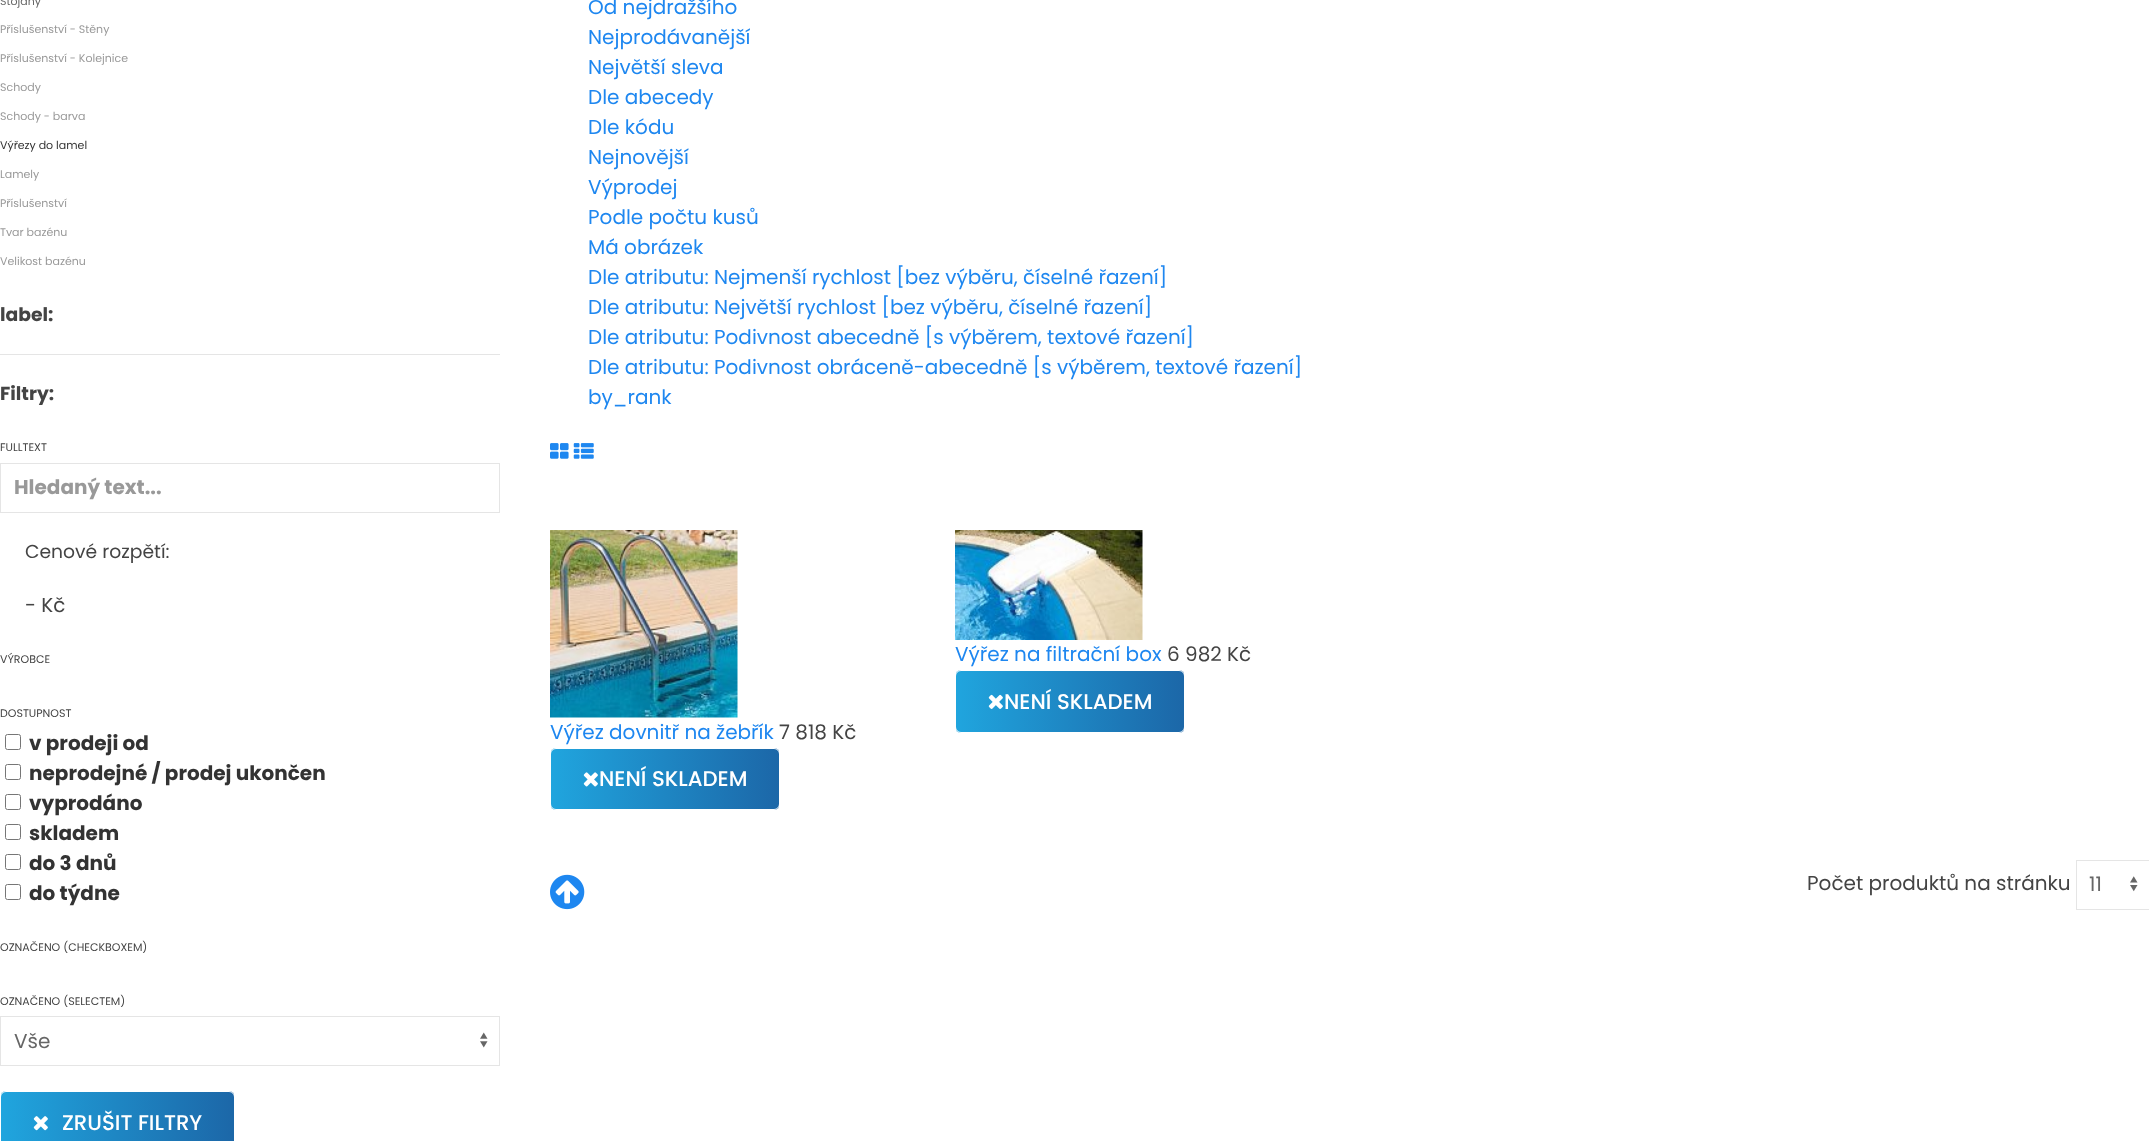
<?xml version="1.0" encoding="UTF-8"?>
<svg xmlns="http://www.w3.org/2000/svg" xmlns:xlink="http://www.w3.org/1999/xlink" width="2149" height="1141">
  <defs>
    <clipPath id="clip1"><rect y="1091" width="235" height="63" rx="6" /></clipPath>
    <linearGradient id="g1" gradientUnits="userSpaceOnUse" x1="1.2" y1="1123" x2="234" y2="1123"><stop offset="0" stop-color="#20a5de" /><stop offset="1" stop-color="#1c67a8" /></linearGradient>
    <clipPath id="clip2"><rect x="955" y="670" width="230" height="63" rx="6" /></clipPath>
    <linearGradient id="g2" gradientUnits="userSpaceOnUse" x1="956" y1="701" x2="1184" y2="701"><stop offset="0" stop-color="#20a5de" /><stop offset="1" stop-color="#1c67a8" /></linearGradient>
    <clipPath id="clip3"><rect x="550" y="748" width="230" height="62" rx="6" /></clipPath>
    <linearGradient id="g3" gradientUnits="userSpaceOnUse" x1="551" y1="779" x2="779" y2="779"><stop offset="0" stop-color="#20a5de" /><stop offset="1" stop-color="#1c67a8" /></linearGradient>
  </defs>
  <rect width="100%" height="100%" fill="#ffffff" />
  <rect y="354" width="500" height="1" fill="#e5e5e5" />
  <rect x="0.5" y="463.5" width="499" height="49" fill="none" stroke="#e5e5e5" />
  <rect x="5.5" y="734.5" width="15" height="15" rx="2" fill="none" stroke="#767676" />
  <rect x="5.5" y="764.5" width="15" height="15" rx="2" fill="none" stroke="#767676" />
  <rect x="5.5" y="794.5" width="15" height="15" rx="2" fill="none" stroke="#767676" />
  <rect x="5.5" y="824.5" width="15" height="15" rx="2" fill="none" stroke="#767676" />
  <rect x="5.5" y="854.5" width="15" height="15" rx="2" fill="none" stroke="#767676" />
  <rect x="5.5" y="884.5" width="15" height="15" rx="2" fill="none" stroke="#767676" />
  <image x="480" y="1032" width="8" height="16" xlink:href="image1.png" />
  <rect x="0.5" y="1016.5" width="499" height="49" fill="none" stroke="#e5e5e5" />
  <g clip-path="url(#clip1)">
    <rect x="1" y="1091" width="233" height="50" fill="url(#g1)" />
  </g>
  <rect x="0.5" y="1091.5" width="234" height="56" rx="5.5" fill="none" stroke="#ffffff" />
  <image x="33" y="1116" width="15" height="15" xlink:href="image2.png" />
  <image x="550" y="443" width="19" height="16" xlink:href="image3.png" />
  <image x="573" y="443" width="21" height="16" xlink:href="image4.png" />
  <image x="955" y="530" width="188" height="110" xlink:href="image5.png" />
  <g clip-path="url(#clip2)">
    <rect x="956" y="670" width="228" height="63" fill="url(#g2)" />
  </g>
  <rect x="955.5" y="670.5" width="229" height="62" rx="5.5" fill="none" stroke="#ffffff" />
  <image x="988" y="694" width="15" height="15" xlink:href="image6.png" />
  <image x="550" y="530" width="188" height="188" xlink:href="image7.png" />
  <g clip-path="url(#clip3)">
    <rect x="551" y="748" width="228" height="62" fill="url(#g3)" />
  </g>
  <rect x="550.5" y="748.5" width="229" height="61" rx="5.5" fill="none" stroke="#ffffff" />
  <image x="583" y="772" width="15" height="15" xlink:href="image8.png" />
  <image x="550" y="874" width="35" height="36" xlink:href="image9.png" />
  <image x="2130" y="876" width="8" height="16" xlink:href="image10.png" />
  <rect x="2076.5" y="860.5" width="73" height="49" fill="none" stroke="#e5e5e5" />
  <text x="0" y="5" style="font-family: Poppins; font-size: 11px; fill: #666666">Stojany</text>
  <text x="0" y="33" style="font-family: Poppins; font-size: 11px; fill: #999999">Příslušenství - Stěny</text>
  <text x="0" y="62" style="font-family: Poppins; font-size: 11px; fill: #999999">Příslušenství - Kolejnice</text>
  <text x="0" y="91" style="font-family: Poppins; font-size: 11px; fill: #999999">Schody</text>
  <text x="0" y="120" style="font-family: Poppins; font-size: 11px; fill: #999999">Schody - barva</text>
  <text x="0" y="149" style="font-family: Poppins; font-size: 11px; fill: #333333">Výřezy do lamel</text>
  <text x="0" y="178" style="font-family: Poppins; font-size: 11px; fill: #999999">Lamely</text>
  <text x="0" y="207" style="font-family: Poppins; font-size: 11px; fill: #999999">Příslušenství</text>
  <text x="0" y="236" style="font-family: Poppins; font-size: 11px; fill: #999999">Tvar bazénu</text>
  <text x="0" y="265" style="font-family: Poppins; font-size: 11px; fill: #999999">Velikost bazénu</text>
  <text x="0" y="321" style="font-family: Poppins; font-size: 18.75px; font-weight: bold; fill: #444444">label:</text>
  <text x="0" y="400" style="font-family: Poppins; font-size: 18.75px; font-weight: bold; fill: #444444">Filtry:</text>
  <text x="0" y="451" style="font-family: Poppins; font-size: 11px; fill: #444444">FULLTEXT</text>
  <text x="14" y="494" style="font-family: Poppins; font-size: 20px; font-weight: bold; fill: #999999">Hledaný text...</text>
  <text x="25" y="558" style="font-family: Poppins; font-size: 18.75px; fill: #444444">Cenové rozpětí:</text>
  <text x="25" y="612" style="font-family: Poppins; font-size: 20px; fill: #444444">- Kč</text>
  <text x="0" y="663" style="font-family: Poppins; font-size: 11px; fill: #444444">VÝROBCE</text>
  <text x="0" y="717" style="font-family: Poppins; font-size: 11px; fill: #444444">DOSTUPNOST</text>
  <text x="29" y="750" style="font-family: Poppins; font-size: 20px; font-weight: bold; fill: #333333">v prodeji od</text>
  <text x="29" y="780" style="font-family: Poppins; font-size: 20px; font-weight: bold; fill: #333333">neprodejné / prodej ukončen</text>
  <text x="29" y="810" style="font-family: Poppins; font-size: 20px; font-weight: bold; fill: #333333">vyprodáno</text>
  <text x="29" y="840" style="font-family: Poppins; font-size: 20px; font-weight: bold; fill: #333333">skladem</text>
  <text x="29" y="870" style="font-family: Poppins; font-size: 20px; font-weight: bold; fill: #333333">do 3 dnů</text>
  <text x="29" y="900" style="font-family: Poppins; font-size: 20px; font-weight: bold; fill: #333333">do týdne</text>
  <text x="0" y="951" style="font-family: Poppins; font-size: 11px; fill: #444444">OZNAČENO (CHECKBOXEM)</text>
  <text x="0" y="1005" style="font-family: Poppins; font-size: 11px; fill: #444444">OZNAČENO (SELECTEM)</text>
  <text x="14" y="1048" style="font-family: Poppins; font-size: 20px; fill: #666666">Vše</text>
  <text x="62" y="1130" style="font-family: Poppins; font-size: 21.25px; font-weight: 500; fill: #ffffff">ZRUŠIT FILTRY</text>
  <text x="588" y="14" style="font-family: Poppins; font-size: 20px; fill: #1e87f0">Od nejdražšího</text>
  <text x="588" y="44" style="font-family: Poppins; font-size: 20px; fill: #1e87f0">Nejprodávanější</text>
  <text x="588" y="74" style="font-family: Poppins; font-size: 20px; fill: #1e87f0">Největší sleva</text>
  <text x="588" y="104" style="font-family: Poppins; font-size: 20px; fill: #1e87f0">Dle abecedy</text>
  <text x="588" y="134" style="font-family: Poppins; font-size: 20px; fill: #1e87f0">Dle kódu</text>
  <text x="588" y="164" style="font-family: Poppins; font-size: 20px; fill: #1e87f0">Nejnovější</text>
  <text x="588" y="194" style="font-family: Poppins; font-size: 20px; fill: #1e87f0">Výprodej</text>
  <text x="588" y="224" style="font-family: Poppins; font-size: 20px; fill: #1e87f0">Podle počtu kusů</text>
  <text x="588" y="254" style="font-family: Poppins; font-size: 20px; fill: #1e87f0">Má obrázek</text>
  <text x="588" y="284" style="font-family: Poppins; font-size: 20px; fill: #1e87f0">Dle atributu: Nejmenší rychlost [bez výběru, číselné řazení]</text>
  <text x="588" y="314" style="font-family: Poppins; font-size: 20px; fill: #1e87f0">Dle atributu: Největší rychlost [bez výběru, číselné řazení]</text>
  <text x="588" y="344" style="font-family: Poppins; font-size: 20px; fill: #1e87f0">Dle atributu: Podivnost abecedně [s výběrem, textové řazení]</text>
  <text x="588" y="374" style="font-family: Poppins; font-size: 20px; fill: #1e87f0">Dle atributu: Podivnost obráceně-abecedně [s výběrem, textové řazení]</text>
  <text x="588" y="404" style="font-family: Poppins; font-size: 20px; fill: #1e87f0">by_rank</text>
  <text x="955" y="661" style="font-family: Poppins; font-size: 20px; fill: #1e87f0">Výřez na filtrační box</text>
  <text x="1167" y="661" style="font-family: Poppins; font-size: 20px; fill: #444444">6 982 Kč</text>
  <text x="1004" y="709" style="font-family: Poppins; font-size: 21.25px; font-weight: 500; fill: #ffffff">NENÍ SKLADEM</text>
  <text x="550" y="739" style="font-family: Poppins; font-size: 20px; fill: #1e87f0">Výřez dovnitř na žebřík</text>
  <text x="779" y="739" style="font-family: Poppins; font-size: 20px; fill: #444444">7 818 Kč</text>
  <text x="599" y="786" style="font-family: Poppins; font-size: 21.25px; font-weight: 500; fill: #ffffff">NENÍ SKLADEM</text>
  <text x="1807" y="890" style="font-family: Poppins; font-size: 20px; fill: #444444">Počet produktů na stránku</text>
  <text x="2089" y="891" style="font-family: Poppins; font-size: 20px; fill: #666666">11</text>
</svg>
